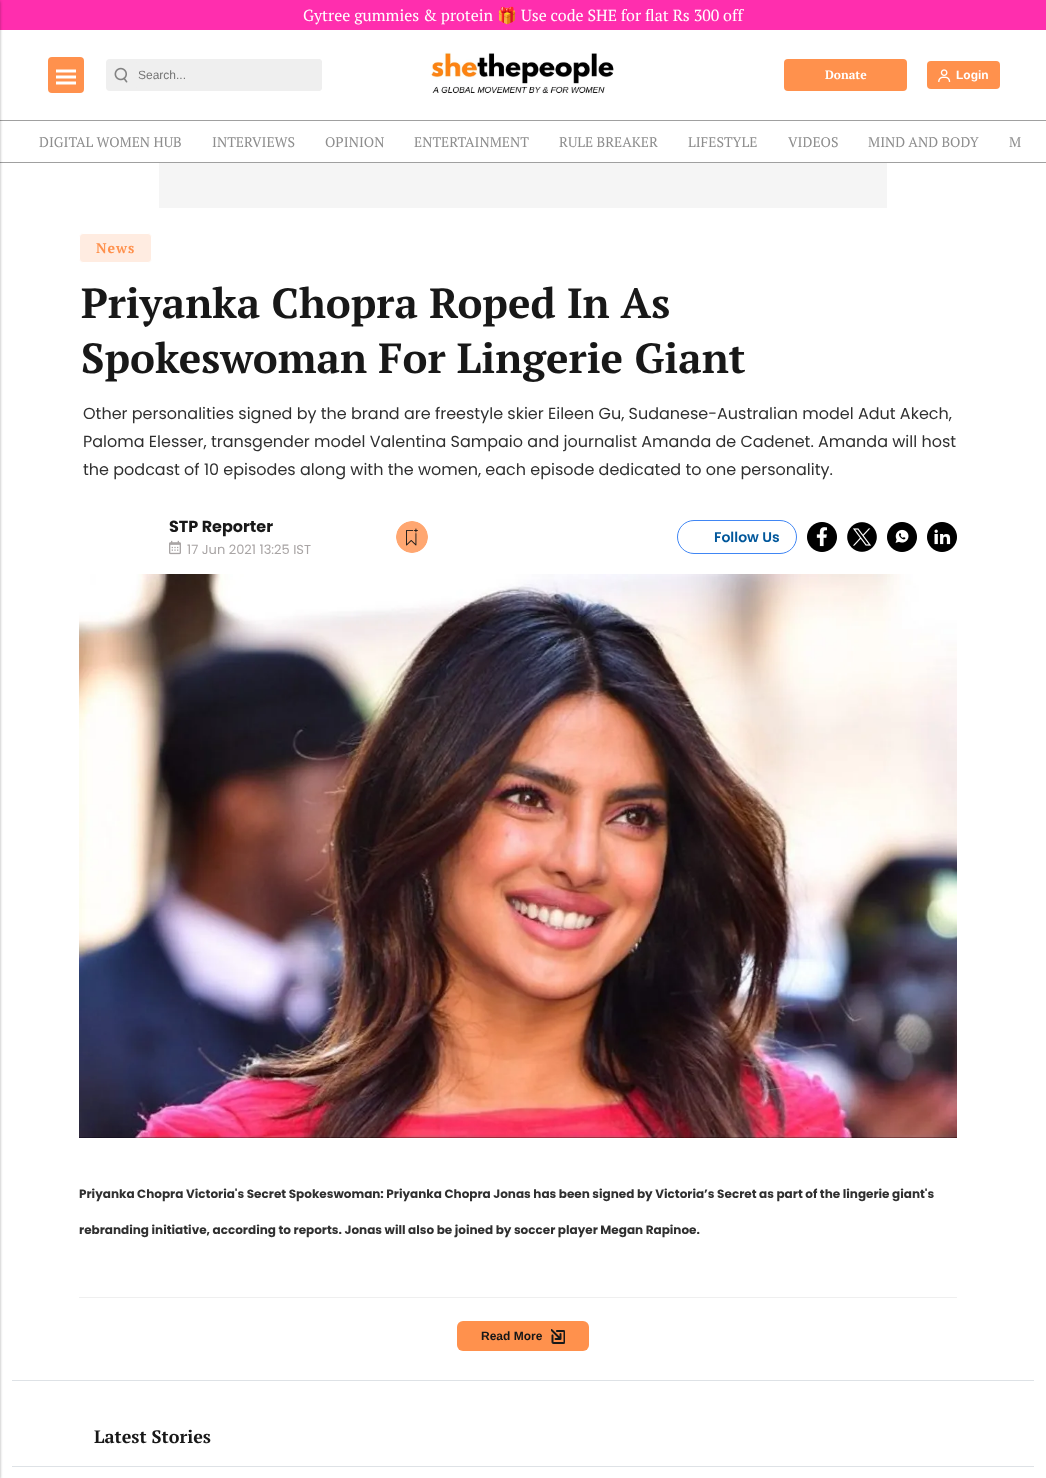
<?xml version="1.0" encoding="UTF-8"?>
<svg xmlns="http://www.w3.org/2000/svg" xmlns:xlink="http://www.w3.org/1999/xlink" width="1046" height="1478">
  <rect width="100%" height="100%" fill="#ffffff" />
  <rect width="1046" height="30" fill="#ff2eae" />
  <rect y="120" width="1046" height="1" fill="#a0a0a0" />
  <rect y="162" width="1046" height="1" fill="#a0a0a0" />
  <rect x="-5" y="2" width="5" height="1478" fill="#000000" fill-opacity="0.22" filter="blur(1.5px)" />
  <rect x="-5" width="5" height="1478" fill="#000000" fill-opacity="0.12" filter="blur(1.5px)" />
  <rect x="48" y="57" width="36" height="36" rx="4" fill="#ff914d" />
  <path d="M 56 83 h 20 m -20 -6 h 20 m -20 -6 h 20" fill="none" stroke="#ffffff" stroke-width="3" />
  <rect x="106" y="59" width="216" height="32" rx="4" fill="#efefef" />
  <image x="114" y="67" width="14" height="16" xlink:href="image1.png" />
  <rect x="136" y="59" width="186" height="32" rx="4" fill="#efefef" />
  <image x="430" y="52" width="184" height="42" xlink:href="image2.png" />
  <rect x="784" y="59" width="123" height="32" rx="4" fill="#ff914d" />
  <rect x="927" y="61" width="73" height="28" rx="4" fill="#ff914d" />
  <image x="938" y="69" width="13" height="13" xlink:href="image3.png" />
  <rect x="159" y="163" width="728" height="45" fill="#f5f5f5" />
  <rect x="79.5" y="233.5" width="72" height="29" rx="3.5" fill="#ffece1" stroke="#ffffff" />
  <image x="169" y="540" width="12" height="15" xlink:href="image4.png" />
  <image x="396" y="521" width="32" height="32" xlink:href="image5.png" />
  <rect x="677.5" y="520.5" width="119" height="33" rx="16.5" fill="none" stroke="#4086f4" />
  <image x="807" y="522" width="30" height="30" xlink:href="image6.png" />
  <image x="847" y="522" width="30" height="30" xlink:href="image7.png" />
  <image x="887" y="522" width="30" height="30" xlink:href="image8.png" />
  <image x="927" y="522" width="30" height="30" xlink:href="image9.png" />
  <image x="79" y="574" width="878" height="564" xlink:href="image10.png" />
  <rect x="79" y="1297" width="878" height="1" fill="#efefef" />
  <rect x="457" y="1321" width="132" height="30" rx="6" fill="#ff914d" />
  <image x="551" y="1329" width="14" height="15" xlink:href="image11.png" />
  <rect x="12" y="1380" width="1022" height="1" fill="#dee2e6" />
  <rect x="12" y="1466" width="1022" height="1" fill="#dee2e6" />
  <text x="303" y="21" style="font-family: PT Serif; font-size: 16px; fill: #ffffff">Gytree gummies &amp; protein</text>
  <text x="497" y="21" style="font-family: Noto Color Emoji; font-size: 16px; fill: #ffffff">🎁</text>
  <text x="521" y="21" style="font-family: PT Serif; font-size: 16px; fill: #ffffff">Use code SHE for flat Rs 300 off</text>
  <text x="138" y="79" style="font-family: Liberation Sans; font-size: 12px; fill: #757575">Search...</text>
  <text x="825" y="79" style="font-family: PT Serif; font-size: 12px; font-weight: bold; fill: #ffffff">Donate</text>
  <text x="956" y="79" style="font-family: Liberation Sans; font-size: 12px; font-weight: bold; fill: #ffffff">Login</text>
  <text x="39" y="147" style="font-family: PT Serif; font-size: 14px; fill: #8d8d8d">DIGITAL WOMEN HUB</text>
  <text x="212" y="147" style="font-family: PT Serif; font-size: 14px; fill: #8d8d8d">INTERVIEWS</text>
  <text x="325" y="147" style="font-family: PT Serif; font-size: 14px; fill: #8d8d8d">OPINION</text>
  <text x="414" y="147" style="font-family: PT Serif; font-size: 14px; fill: #8d8d8d">ENTERTAINMENT</text>
  <text x="559" y="147" style="font-family: PT Serif; font-size: 14px; fill: #8d8d8d">RULE BREAKER</text>
  <text x="688" y="147" style="font-family: PT Serif; font-size: 14px; fill: #8d8d8d">LIFESTYLE</text>
  <text x="788" y="147" style="font-family: PT Serif; font-size: 14px; fill: #8d8d8d">VIDEOS</text>
  <text x="868" y="147" style="font-family: PT Serif; font-size: 14px; fill: #8d8d8d">MIND AND BODY</text>
  <text x="1009" y="147" style="font-family: PT Serif; font-size: 14px; fill: #8d8d8d">M</text>
  <text x="96" y="253" style="font-family: PT Serif; font-size: 14px; font-weight: bold; letter-spacing: 1px; fill: #ff914d">News</text>
  <text x="81" y="318" style="font-family: PT Serif; font-size: 42px; font-weight: bold; fill: #181818">Priyanka Chopra Roped In As</text>
  <text x="81" y="373" style="font-family: PT Serif; font-size: 42px; font-weight: bold; fill: #181818">Spokeswoman For Lingerie Giant</text>
  <text x="83" y="419" style="font-family: Poppins; font-size: 16px; fill: #303030">Other personalities signed by the brand are freestyle skier Eileen Gu, Sudanese-Australian model Adut Akech,</text>
  <text x="83" y="447" style="font-family: Poppins; font-size: 16px; fill: #303030">Paloma Elesser, transgender model Valentina Sampaio and journalist Amanda de Cadenet. Amanda will host</text>
  <text x="83" y="475" style="font-family: Poppins; font-size: 16px; fill: #303030">the podcast of 10 episodes along with the women, each episode dedicated to one personality.</text>
  <text x="169" y="532" style="font-family: Poppins; font-size: 16px; font-weight: bold; fill: #181818">STP Reporter</text>
  <text x="187" y="554" style="font-family: Poppins; font-size: 13px; fill: #a9a5a5">17 Jun 2021 13:25 IST</text>
  <text x="714" y="542" style="font-family: Poppins; font-size: 14px; font-weight: 600; fill: #01579b">Follow Us</text>
  <text x="79" y="1198" style="font-family: Poppins; font-size: 12px; font-weight: bold; fill: #303030">Priyanka Chopra Victoria's Secret Spokeswoman: Priyanka Chopra Jonas has been signed by Victoria’s Secret as part of the lingerie giant's</text>
  <text x="79" y="1234" style="font-family: Poppins; font-size: 12px; font-weight: bold; fill: #303030">rebranding initiative, according to reports. Jonas will also be joined by soccer player Megan Rapinoe.</text>
  <text x="481" y="1340" style="font-family: Liberation Sans; font-size: 12px; font-weight: bold; fill: #181818">Read More</text>
  <text x="94" y="1443" style="font-family: PT Serif; font-size: 18px; font-weight: bold; fill: #181818">Latest Stories</text>
</svg>
